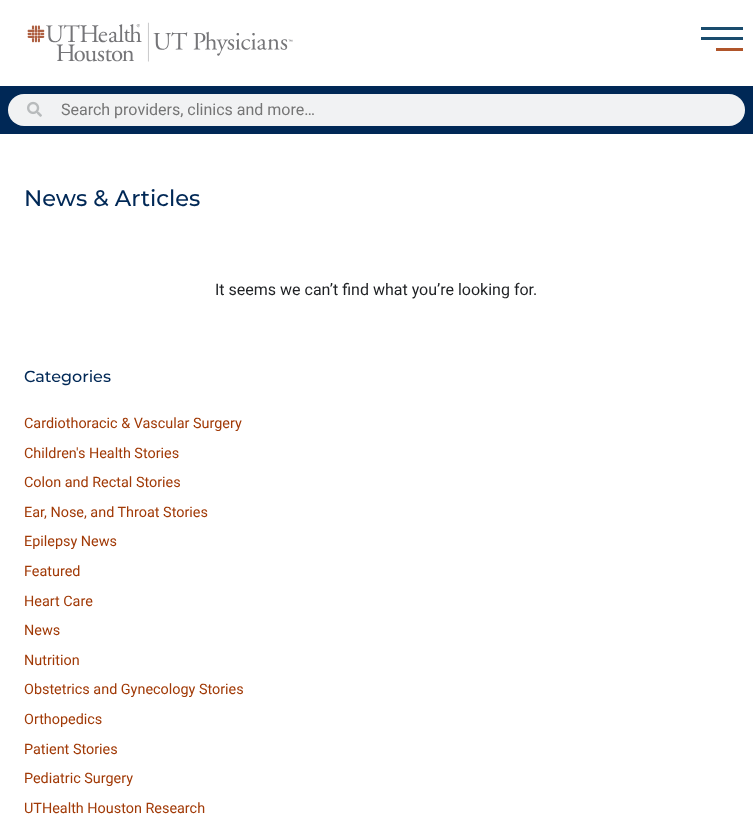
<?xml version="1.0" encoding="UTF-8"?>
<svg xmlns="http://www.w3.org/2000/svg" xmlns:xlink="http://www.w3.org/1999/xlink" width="753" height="838">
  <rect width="100%" height="100%" fill="#ffffff" />
  <image x="27" y="22" width="266" height="40" xlink:href="image1.png" />
  <rect x="701" y="37" width="42" height="3" fill="#1a4c6d" />
  <rect x="701" y="27" width="42" height="3" fill="#1a4c6d" />
  <rect x="716" y="48" width="27" height="3" fill="#b0552a" />
  <rect y="86" width="753" height="48" fill="#002856" />
  <rect x="8" y="94" width="737" height="32" rx="16" fill="#f1f2f3" />
  <image x="27" y="101" width="15" height="16" xlink:href="image2.png" />
  <text x="61" y="115" style="font-family: Roboto; font-size: 16px; fill: #757575">Search providers, clinics and more…</text>
  <text x="24" y="206" style="font-family: Montserrat; font-size: 22.5px; font-weight: 500; fill: #002856">News &amp; Articles</text>
  <text x="215" y="295" style="font-family: Roboto; font-size: 16px; fill: #1f2124">It seems we can’t find what you’re looking for.</text>
  <text x="24" y="382" style="font-family: Montserrat; font-size: 16px; font-weight: 500; fill: #002856">Categories</text>
  <text x="24" y="428" style="font-family: Roboto; font-size: 14.4px; fill: #a13a07">Cardiothoracic &amp; Vascular Surgery</text>
  <text x="24" y="458" style="font-family: Roboto; font-size: 14.4px; fill: #a13a07">Children's Health Stories</text>
  <text x="24" y="487" style="font-family: Roboto; font-size: 14.4px; fill: #a13a07">Colon and Rectal Stories</text>
  <text x="24" y="517" style="font-family: Roboto; font-size: 14.4px; fill: #a13a07">Ear, Nose, and Throat Stories</text>
  <text x="24" y="546" style="font-family: Roboto; font-size: 14.4px; fill: #a13a07">Epilepsy News</text>
  <text x="24" y="576" style="font-family: Roboto; font-size: 14.4px; fill: #a13a07">Featured</text>
  <text x="24" y="606" style="font-family: Roboto; font-size: 14.4px; fill: #a13a07">Heart Care</text>
  <text x="24" y="635" style="font-family: Roboto; font-size: 14.4px; fill: #a13a07">News</text>
  <text x="24" y="665" style="font-family: Roboto; font-size: 14.4px; fill: #a13a07">Nutrition</text>
  <text x="24" y="694" style="font-family: Roboto; font-size: 14.4px; fill: #a13a07">Obstetrics and Gynecology Stories</text>
  <text x="24" y="724" style="font-family: Roboto; font-size: 14.4px; fill: #a13a07">Orthopedics</text>
  <text x="24" y="754" style="font-family: Roboto; font-size: 14.4px; fill: #a13a07">Patient Stories</text>
  <text x="24" y="783" style="font-family: Roboto; font-size: 14.4px; fill: #a13a07">Pediatric Surgery</text>
  <text x="24" y="813" style="font-family: Roboto; font-size: 14.4px; fill: #a13a07">UTHealth Houston Research</text>
</svg>
